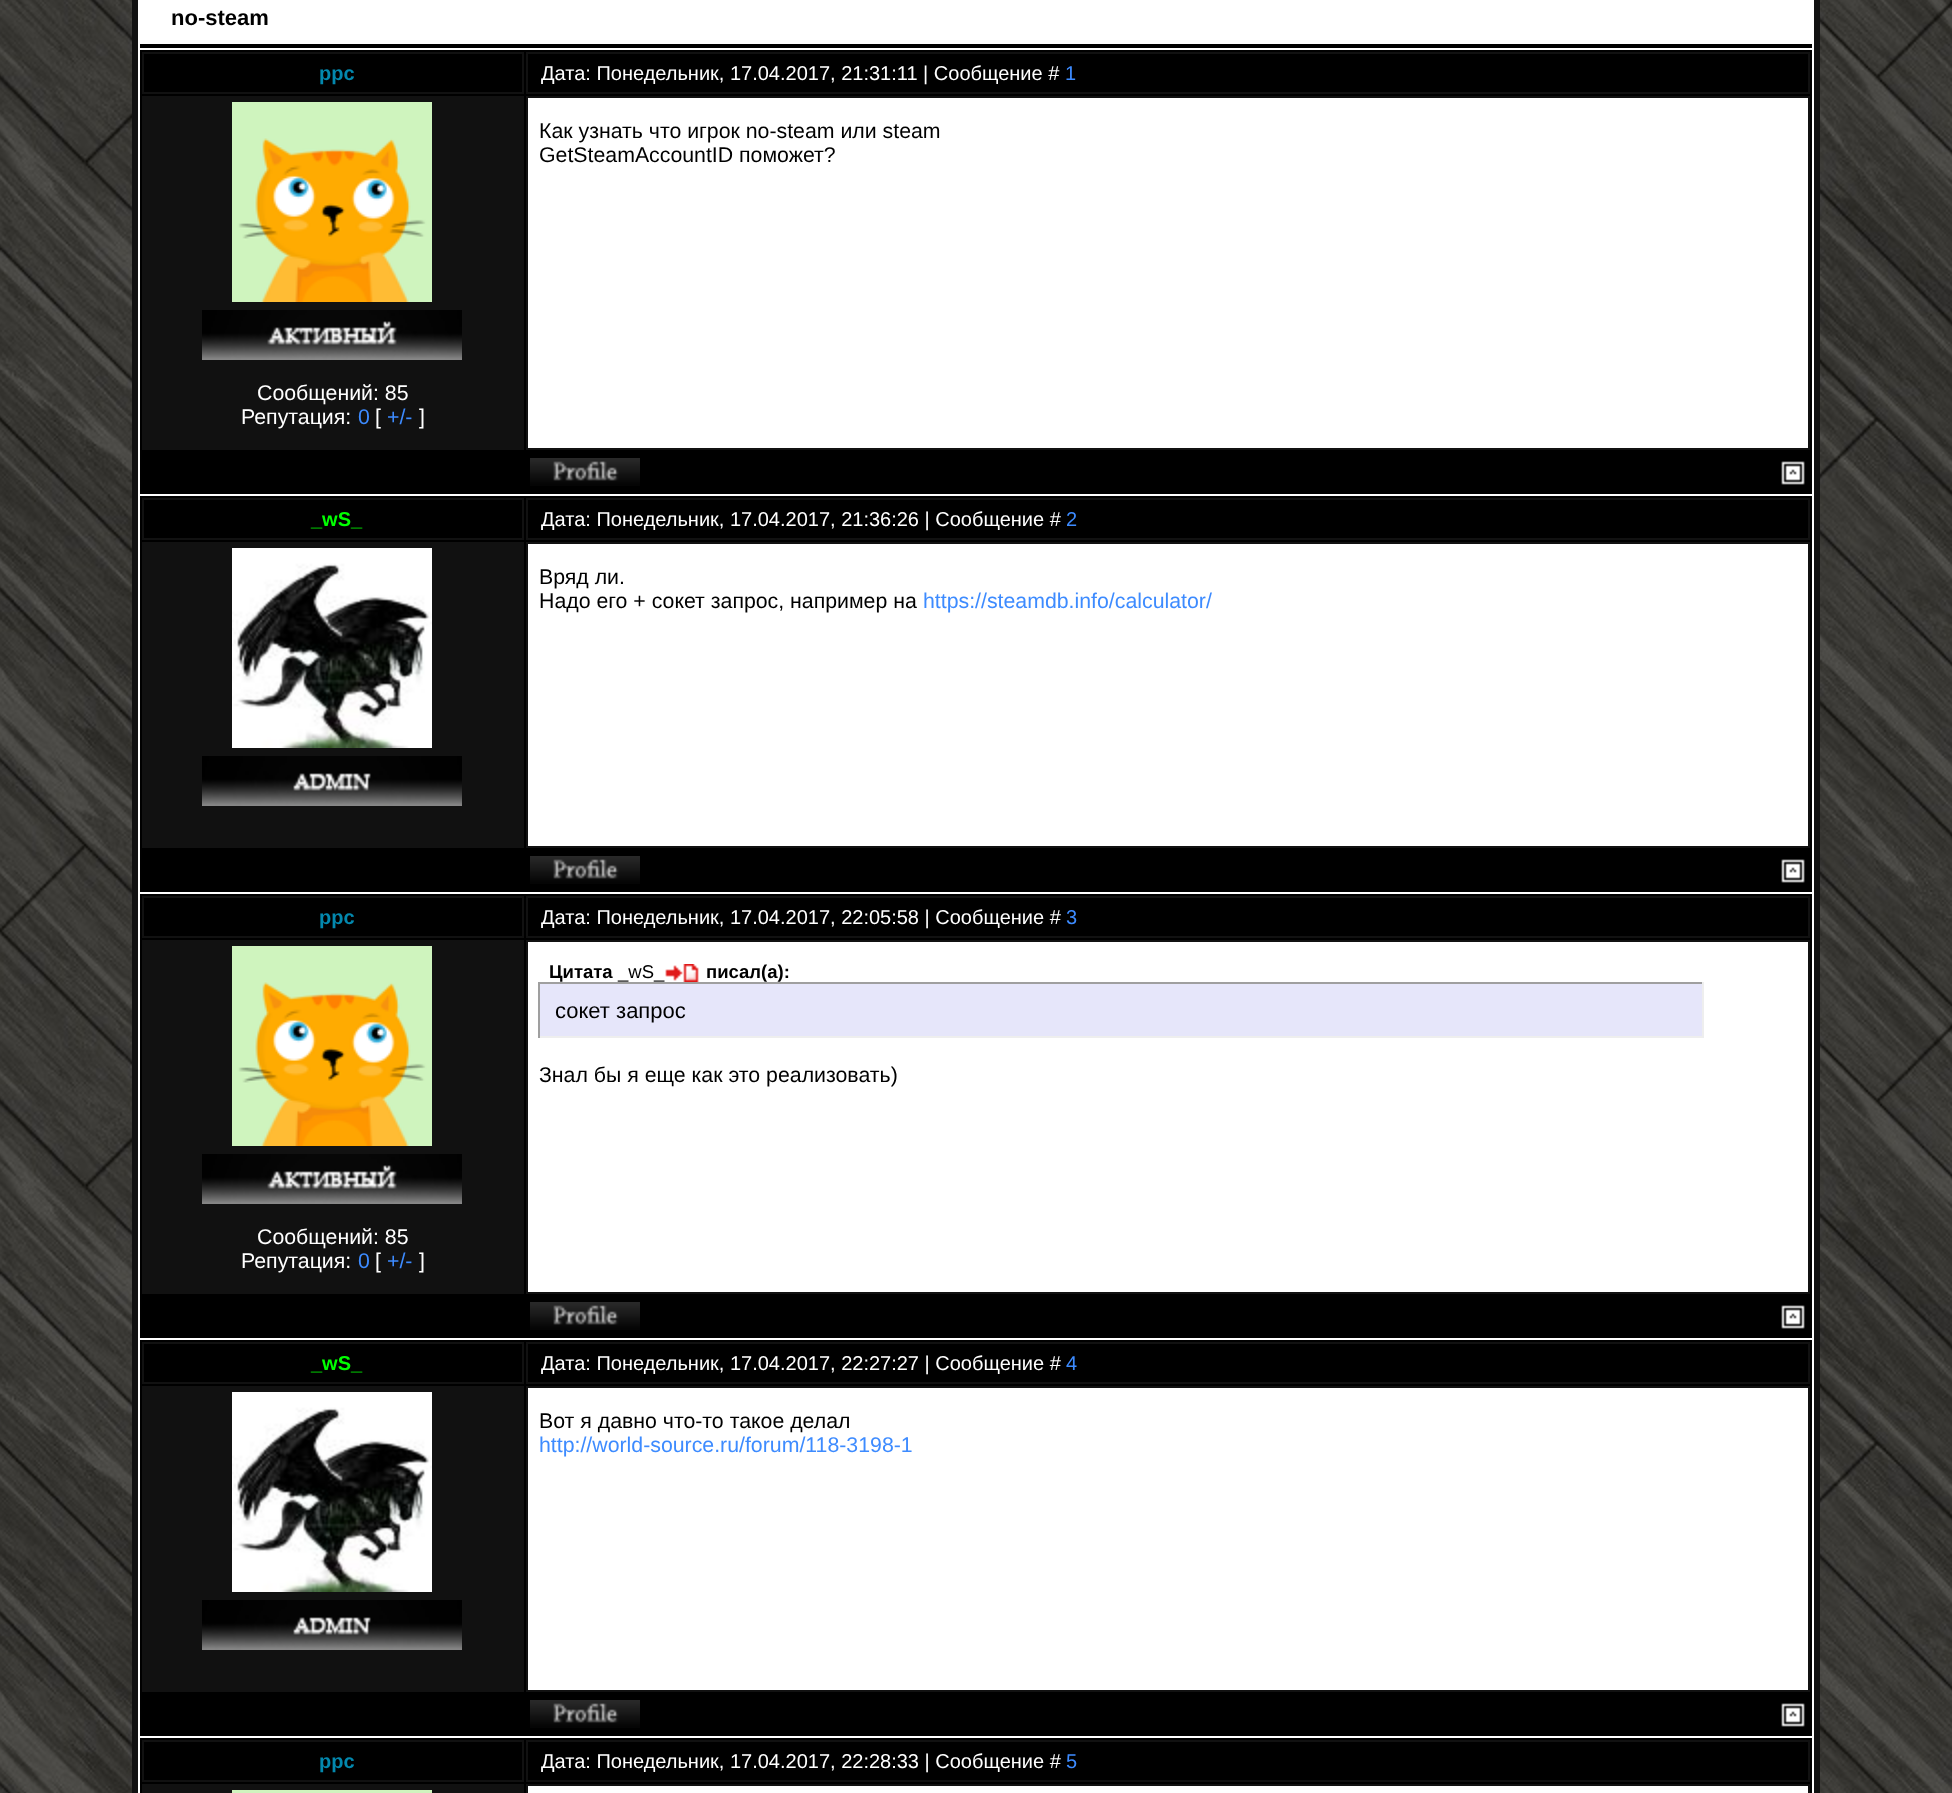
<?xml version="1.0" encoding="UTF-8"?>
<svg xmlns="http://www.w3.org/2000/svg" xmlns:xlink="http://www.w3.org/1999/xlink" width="1952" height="1793">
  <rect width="100%" height="100%" fill="#ffffff" />
  <image x="0" y="0" width="1952" height="1793" xlink:href="image1.png" />
  <rect x="132" width="1688" height="1793" fill="#111111" />
  <rect x="138" width="1676" height="1793" fill="#ffffff" />
  <rect x="140" y="44" width="1672" height="4" fill="#000000" />
  <rect x="140" y="50" width="1672" height="444" fill="#000000" />
  <rect x="143" y="53" width="380" height="40" fill="none" stroke="#111111" stroke-width="2" />
  <rect x="527" y="53" width="1282" height="40" fill="none" stroke="#111111" stroke-width="2" />
  <rect x="527" y="97" width="1282" height="352" fill="#ffffff" stroke="#111111" stroke-width="2" />
  <rect x="142" y="96" width="382" height="354" fill="#111111" />
  <image x="232" y="102" width="200" height="200" xlink:href="image2.png" />
  <image x="202" y="310" width="260" height="50" xlink:href="image3.png" />
  <image x="530" y="458" width="110" height="28" xlink:href="image4.png" />
  <image x="1781" y="461" width="24" height="24" xlink:href="image5.png" />
  <rect x="140" y="496" width="1672" height="396" fill="#000000" />
  <rect x="143" y="499" width="380" height="40" fill="none" stroke="#111111" stroke-width="2" />
  <rect x="527" y="499" width="1282" height="40" fill="none" stroke="#111111" stroke-width="2" />
  <rect x="142" y="542" width="382" height="306" fill="#111111" />
  <image x="232" y="548" width="200" height="200" xlink:href="image6.png" />
  <image x="202" y="756" width="260" height="50" xlink:href="image7.png" />
  <rect x="527" y="543" width="1282" height="304" fill="#ffffff" stroke="#111111" stroke-width="2" />
  <image x="530" y="856" width="110" height="28" xlink:href="image4.png" />
  <image x="1781" y="859" width="24" height="24" xlink:href="image5.png" />
  <rect x="140" y="894" width="1672" height="444" fill="#000000" />
  <rect x="143" y="897" width="380" height="40" fill="none" stroke="#111111" stroke-width="2" />
  <rect x="527" y="897" width="1282" height="40" fill="none" stroke="#111111" stroke-width="2" />
  <rect x="527" y="941" width="1282" height="352" fill="#ffffff" stroke="#111111" stroke-width="2" />
  <image x="665" y="964" width="34" height="18" xlink:href="image8.png" />
  <rect x="540" y="984" width="1162" height="52" fill="#e6e6fa" />
  <rect x="538" y="982" width="1166" height="2" fill="#9f9f9f" />
  <rect x="1702" y="982" width="2" height="56" fill="#eeeeee" />
  <rect x="538" y="1036" width="1166" height="2" fill="#eeeeee" />
  <rect x="538" y="982" width="2" height="56" fill="#9f9f9f" />
  <rect x="142" y="940" width="382" height="354" fill="#111111" />
  <image x="232" y="946" width="200" height="200" xlink:href="image9.png" />
  <image x="202" y="1154" width="260" height="50" xlink:href="image3.png" />
  <image x="530" y="1302" width="110" height="28" xlink:href="image4.png" />
  <image x="1781" y="1305" width="24" height="24" xlink:href="image5.png" />
  <rect x="140" y="1340" width="1672" height="396" fill="#000000" />
  <rect x="143" y="1343" width="380" height="40" fill="none" stroke="#111111" stroke-width="2" />
  <rect x="527" y="1343" width="1282" height="40" fill="none" stroke="#111111" stroke-width="2" />
  <rect x="142" y="1386" width="382" height="306" fill="#111111" />
  <image x="232" y="1392" width="200" height="200" xlink:href="image6.png" />
  <image x="202" y="1600" width="260" height="50" xlink:href="image7.png" />
  <rect x="527" y="1387" width="1282" height="304" fill="#ffffff" stroke="#111111" stroke-width="2" />
  <image x="530" y="1700" width="110" height="28" xlink:href="image4.png" />
  <image x="1781" y="1703" width="24" height="24" xlink:href="image5.png" />
  <rect x="140" y="1738" width="1672" height="55" fill="#000000" />
  <rect x="143" y="1741" width="380" height="40" fill="none" stroke="#111111" stroke-width="2" />
  <rect x="527" y="1741" width="1282" height="40" fill="none" stroke="#111111" stroke-width="2" />
  <rect x="142" y="1784" width="382" height="9" fill="#111111" />
  <rect x="232" y="1790" width="200" height="3" fill="#cff4be" />
  <rect x="527" y="1785" width="1282" height="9" fill="#ffffff" stroke="#111111" stroke-width="2" />
  <text x="171" y="25" style="font-family: Liberation Sans; font-size: 22px; font-weight: bold; fill: #000000">no-steam</text>
  <text x="319" y="80" style="font-family: Liberation Sans; font-size: 20px; font-weight: bold; fill: #0388ae">ppc</text>
  <text x="541" y="80" style="font-family: Liberation Sans; font-size: 20px; fill: #ffffff">Дата: Понедельник, 17.04.2017, 21:31:11 | Сообщение #</text>
  <text x="1065" y="80" style="font-family: Liberation Sans; font-size: 20px; fill: #3d8bff">1</text>
  <text x="539" y="138" style="font-family: Liberation Sans; font-size: 21.3px; fill: #000000">Как узнать что игрок no-steam или steam</text>
  <text x="539" y="162" style="font-family: Liberation Sans; font-size: 21.3px; fill: #000000">GetSteamAccountID поможет?</text>
  <text x="257" y="400" style="font-family: Liberation Sans; font-size: 21.3px; fill: #ffffff">Сообщений: 85</text>
  <text x="241" y="424" style="font-family: Liberation Sans; font-size: 21.3px; fill: #ffffff">Репутация:</text>
  <text x="358" y="424" style="font-family: Liberation Sans; font-size: 21.3px; fill: #3d8bff">0</text>
  <text x="375" y="424" style="font-family: Liberation Sans; font-size: 21.3px; fill: #ffffff">[</text>
  <text x="387" y="424" style="font-family: Liberation Sans; font-size: 21.3px; fill: #3d8bff">+/-</text>
  <text x="419" y="424" style="font-family: Liberation Sans; font-size: 21.3px; fill: #ffffff">]</text>
  <text x="311" y="526" style="font-family: Liberation Sans; font-size: 20px; font-weight: bold; fill: #00ff00">_wS_</text>
  <text x="541" y="526" style="font-family: Liberation Sans; font-size: 20px; fill: #ffffff">Дата: Понедельник, 17.04.2017, 21:36:26 | Сообщение #</text>
  <text x="1066" y="526" style="font-family: Liberation Sans; font-size: 20px; fill: #3d8bff">2</text>
  <text x="539" y="584" style="font-family: Liberation Sans; font-size: 21.3px; fill: #000000">Вряд ли.</text>
  <text x="539" y="608" style="font-family: Liberation Sans; font-size: 21.3px; fill: #000000">Надо его + сокет запрос, например на</text>
  <text x="923" y="608" style="font-family: Liberation Sans; font-size: 21.3px; fill: #3d8bff">https://steamdb.info/calculator/</text>
  <text x="319" y="924" style="font-family: Liberation Sans; font-size: 20px; font-weight: bold; fill: #0388ae">ppc</text>
  <text x="541" y="924" style="font-family: Liberation Sans; font-size: 20px; fill: #ffffff">Дата: Понедельник, 17.04.2017, 22:05:58 | Сообщение #</text>
  <text x="1066" y="924" style="font-family: Liberation Sans; font-size: 20px; fill: #3d8bff">3</text>
  <text x="549" y="978" style="font-family: Liberation Sans; font-size: 18.5px; font-weight: bold; fill: #000000">Цитата</text>
  <text x="618" y="978" style="font-family: Liberation Sans; font-size: 18.5px; fill: #000000">_wS_</text>
  <text x="706" y="978" style="font-family: Liberation Sans; font-size: 18.5px; font-weight: bold; fill: #000000">писал(а):</text>
  <text x="555" y="1018" style="font-family: Liberation Sans; font-size: 22px; fill: #000000">сокет запрос</text>
  <text x="539" y="1082" style="font-family: Liberation Sans; font-size: 21.3px; fill: #000000">Знал бы я еще как это реализовать)</text>
  <text x="257" y="1244" style="font-family: Liberation Sans; font-size: 21.3px; fill: #ffffff">Сообщений: 85</text>
  <text x="241" y="1268" style="font-family: Liberation Sans; font-size: 21.3px; fill: #ffffff">Репутация:</text>
  <text x="358" y="1268" style="font-family: Liberation Sans; font-size: 21.3px; fill: #3d8bff">0</text>
  <text x="375" y="1268" style="font-family: Liberation Sans; font-size: 21.3px; fill: #ffffff">[</text>
  <text x="387" y="1268" style="font-family: Liberation Sans; font-size: 21.3px; fill: #3d8bff">+/-</text>
  <text x="419" y="1268" style="font-family: Liberation Sans; font-size: 21.3px; fill: #ffffff">]</text>
  <text x="311" y="1370" style="font-family: Liberation Sans; font-size: 20px; font-weight: bold; fill: #00ff00">_wS_</text>
  <text x="541" y="1370" style="font-family: Liberation Sans; font-size: 20px; fill: #ffffff">Дата: Понедельник, 17.04.2017, 22:27:27 | Сообщение #</text>
  <text x="1066" y="1370" style="font-family: Liberation Sans; font-size: 20px; fill: #3d8bff">4</text>
  <text x="539" y="1428" style="font-family: Liberation Sans; font-size: 21.3px; fill: #000000">Вот я давно что-то такое делал</text>
  <text x="539" y="1452" style="font-family: Liberation Sans; font-size: 21.3px; fill: #3d8bff">http://world-source.ru/forum/118-3198-1</text>
  <text x="319" y="1768" style="font-family: Liberation Sans; font-size: 20px; font-weight: bold; fill: #0388ae">ppc</text>
  <text x="541" y="1768" style="font-family: Liberation Sans; font-size: 20px; fill: #ffffff">Дата: Понедельник, 17.04.2017, 22:28:33 | Сообщение #</text>
  <text x="1066" y="1768" style="font-family: Liberation Sans; font-size: 20px; fill: #3d8bff">5</text>
</svg>
